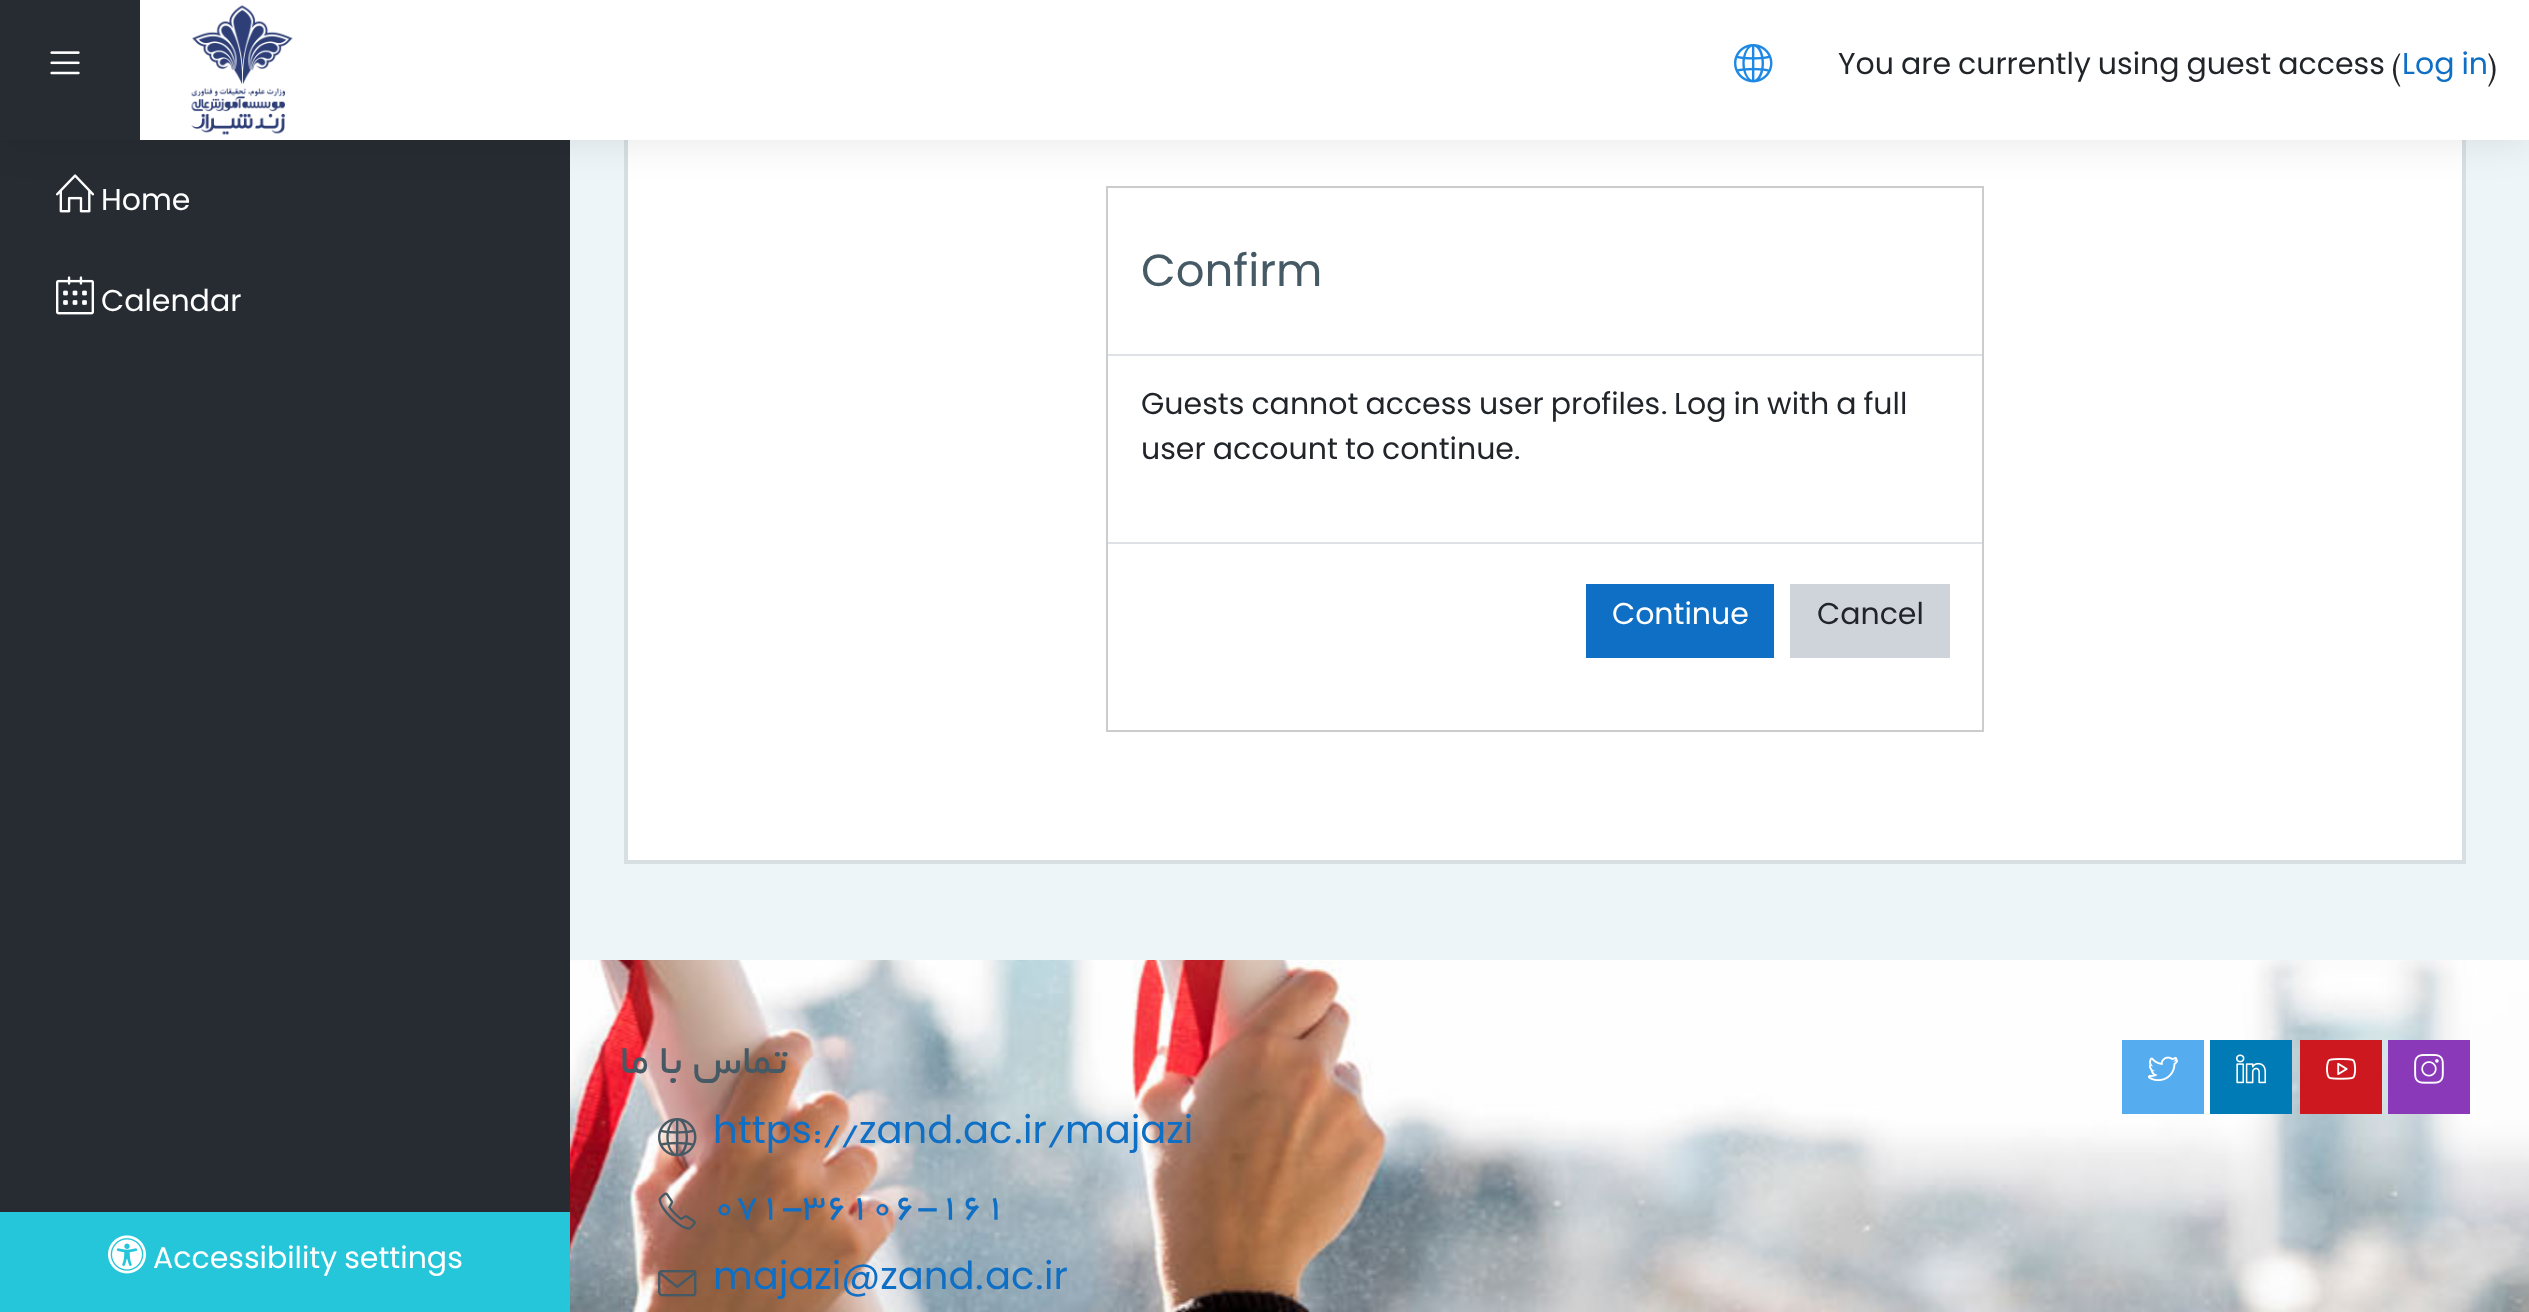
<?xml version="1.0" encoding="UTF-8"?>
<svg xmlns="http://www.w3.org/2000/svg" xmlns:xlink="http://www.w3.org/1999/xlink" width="2529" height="1312">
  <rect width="100%" height="100%" fill="#eef5f9" />
  <rect y="140" width="570" height="1072" fill="#272c33" />
  <image x="56" y="174" width="39" height="39" xlink:href="image4.png" />
  <rect x="625" y="53" width="1840" height="810" fill="none" stroke="#d7dfe3" stroke-width="2" />
  <rect x="628" y="140" width="1834" height="720" fill="#ffffff" />
  <rect x="627" y="55" width="1836" height="806" fill="none" stroke="#d7dfe3" stroke-width="2" />
  <rect x="1107" y="187" width="876" height="544" fill="none" stroke="#cccccc" stroke-width="2" />
  <rect width="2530" height="140" fill="#000000" fill-opacity="0.1" filter="blur(20px)" />
  <rect x="140" width="2389" height="140" fill="#ffffff" />
  <rect width="140" height="140" fill="#272c33" />
  <image x="50" y="51" width="30" height="24" xlink:href="image1.png" />
  <image x="191" y="5" width="102" height="130" xlink:href="image2.png" />
  <image x="1734" y="44" width="39" height="39" xlink:href="image3.png" />
  <image x="56" y="276" width="38" height="39" xlink:href="image5.png" />
  <rect x="1108" y="354" width="874" height="2" fill="#dee2e6" />
  <rect x="1108" y="542" width="874" height="2" fill="#dee2e6" />
  <rect x="1586" y="584" width="188" height="74" fill="#0f6fc5" />
  <rect x="1790" y="584" width="160" height="74" fill="#ced4da" />
  <rect y="1212" width="570" height="100" fill="#26c6da" />
  <image x="108" y="1235" width="38" height="39" xlink:href="image6.png" />
  <image x="570" y="960" width="1959" height="352" xlink:href="image7.png" />
  <image x="658" y="1118" width="39" height="39" xlink:href="image8.png" />
  <image x="658" y="1192" width="38" height="38" xlink:href="image9.png" />
  <image x="658" y="1270" width="39" height="27" xlink:href="image10.png" />
  <rect x="2122" y="1040" width="82" height="74" fill="#55acee" />
  <image x="2148" y="1056" width="30" height="26" xlink:href="image11.png" />
  <rect x="2210" y="1040" width="82" height="74" fill="#007bb5" />
  <image x="2236" y="1054" width="30" height="30" xlink:href="image12.png" />
  <rect x="2300" y="1040" width="82" height="74" fill="#cc181e" />
  <image x="2326" y="1058" width="31" height="22" xlink:href="image13.png" />
  <rect x="2388" y="1040" width="82" height="74" fill="#8a3ab9" />
  <image x="2414" y="1054" width="30" height="30" xlink:href="image14.png" />
  <text x="1838" y="74" word-spacing="-1" style="font-family: Poppins; font-size: 30px; fill: #212529">You are currently using guest access</text>
  <text x="2391" y="74" style="font-family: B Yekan; font-size: 30px; fill: #212529">(</text>
  <text x="2402" y="74" word-spacing="-1" style="font-family: Poppins; font-size: 30px; fill: #0f6fc5">Log in</text>
  <text x="2487" y="74" style="font-family: B Yekan; font-size: 30px; fill: #212529">)</text>
  <text x="101" y="210" style="font-family: Poppins; font-size: 30px; fill: #ffffff">Home</text>
  <text x="101" y="311" style="font-family: Poppins; font-size: 30px; fill: #ffffff">Calendar</text>
  <text x="1141" y="286" style="font-family: Poppins; font-size: 45px; fill: #455a64">Confirm</text>
  <text x="1141" y="414" word-spacing="-1" style="font-family: Poppins; font-size: 30px; fill: #212529">Guests cannot access user profiles</text>
  <text x="1660" y="414" style="font-family: B Yekan; font-size: 30px; fill: #212529">.</text>
  <text x="1674" y="414" word-spacing="-1" style="font-family: Poppins; font-size: 30px; fill: #212529">Log in with a full</text>
  <text x="1141" y="459" word-spacing="-1" style="font-family: Poppins; font-size: 30px; fill: #212529">user account to continue</text>
  <text x="1513" y="459" style="font-family: B Yekan; font-size: 30px; fill: #212529">.</text>
  <text x="1612" y="624" style="font-family: Poppins; font-size: 30px; fill: #ffffff">Continue</text>
  <text x="1817" y="624" style="font-family: Poppins; font-size: 30px; fill: #212529">Cancel</text>
  <text x="153" y="1268" word-spacing="-1" style="font-family: Poppins; font-size: 30px; fill: #ffffff">Accessibility settings</text>
  <text x="787" y="1073" style="font-family: B Yekan; font-size: 45px; direction: rtl; fill: #455a64">تماس با ما</text>
  <text x="713" y="1143" style="font-family: Poppins; font-size: 38.5px; fill: #0f6fc5">https</text>
  <text x="812" y="1143" style="font-family: B Yekan; font-size: 38.5px; fill: #0f6fc5">://</text>
  <text x="859" y="1143" style="font-family: Poppins; font-size: 38.5px; fill: #0f6fc5">zand</text>
  <text x="953" y="1143" style="font-family: B Yekan; font-size: 38.5px; fill: #0f6fc5">.</text>
  <text x="963" y="1143" style="font-family: Poppins; font-size: 38.5px; fill: #0f6fc5">ac</text>
  <text x="1013" y="1143" style="font-family: B Yekan; font-size: 38.5px; fill: #0f6fc5">.</text>
  <text x="1023" y="1143" style="font-family: Poppins; font-size: 38.5px; fill: #0f6fc5">ir</text>
  <text x="1047" y="1143" style="font-family: B Yekan; font-size: 38.5px; fill: #0f6fc5">/</text>
  <text x="1065" y="1143" style="font-family: Poppins; font-size: 38.5px; fill: #0f6fc5">majazi</text>
  <text x="713" y="1216" style="font-family: B Yekan; font-size: 38.5px; fill: #0f6fc5">071-36106-161</text>
  <text x="713" y="1289" style="font-family: Poppins; font-size: 38.5px; fill: #0f6fc5">majazi@zand</text>
  <text x="974" y="1289" style="font-family: B Yekan; font-size: 38.5px; fill: #0f6fc5">.</text>
  <text x="985" y="1289" style="font-family: Poppins; font-size: 38.5px; fill: #0f6fc5">ac</text>
  <text x="1034" y="1289" style="font-family: B Yekan; font-size: 38.5px; fill: #0f6fc5">.</text>
  <text x="1044" y="1289" style="font-family: Poppins; font-size: 38.5px; fill: #0f6fc5">ir</text>
</svg>
